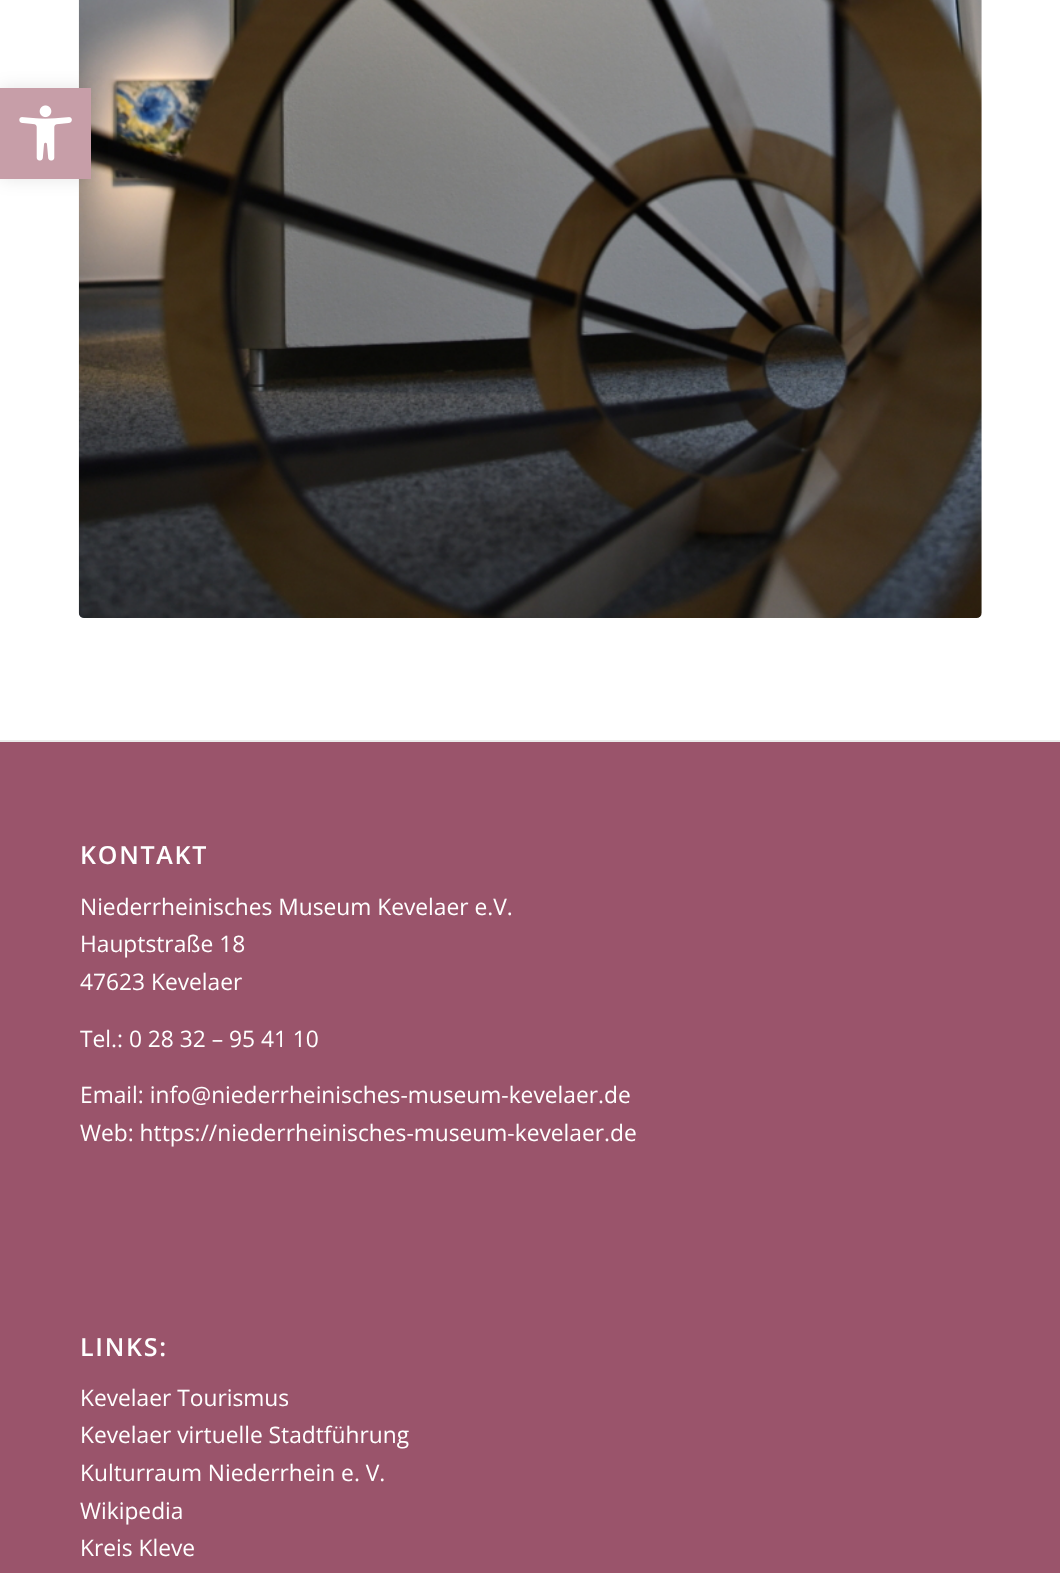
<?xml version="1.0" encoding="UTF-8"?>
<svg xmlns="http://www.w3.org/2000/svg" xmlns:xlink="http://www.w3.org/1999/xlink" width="1060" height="1573">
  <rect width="100%" height="100%" fill="#ffffff" />
  <image x="78" y="0" width="904" height="618" xlink:href="image2.png" />
  <rect y="88" width="91" height="91" fill="#000000" fill-opacity="0.1" filter="blur(9px)" />
  <rect y="88" width="91" height="91" fill="#c79ea8" />
  <image x="19" y="105" width="53" height="56" xlink:href="image1.png" />
  <rect y="742" width="1060" height="831" fill="#9a546b" />
  <rect y="740" width="1060" height="2" fill="#ebebeb" />
  <text x="80" y="864" style="font-family: Open Sans; font-size: 25px; font-weight: 600; letter-spacing: 1.75px; fill: #ffffff">KONTAKT</text>
  <text x="80" y="915" style="font-family: Open Sans; font-size: 22.75px; fill: #ffffff">Niederrheinisches Museum Kevelaer e.V.</text>
  <text x="80" y="952" style="font-family: Open Sans; font-size: 22.75px; fill: #ffffff">Hauptstraße 18</text>
  <text x="80" y="990" style="font-family: Open Sans; font-size: 22.75px; fill: #ffffff">47623 Kevelaer</text>
  <text x="80" y="1047" style="font-family: Open Sans; font-size: 22.75px; fill: #ffffff">Tel.: 0 28 32 – 95 41 10</text>
  <text x="80" y="1103" style="font-family: Open Sans; font-size: 22.75px; fill: #ffffff">Email: info@niederrheinisches-museum-kevelaer.de</text>
  <text x="80" y="1141" style="font-family: Open Sans; font-size: 22.75px; fill: #ffffff">Web: https://niederrheinisches-museum-kevelaer.de</text>
  <text x="80" y="1356" style="font-family: Open Sans; font-size: 25px; font-weight: 600; letter-spacing: 1.75px; fill: #ffffff">LINKS:</text>
  <text x="80" y="1406" style="font-family: Open Sans; font-size: 22.75px; fill: #ffffff">Kevelaer Tourismus</text>
  <text x="80" y="1443" style="font-family: Open Sans; font-size: 22.75px; fill: #ffffff">Kevelaer virtuelle Stadtführung</text>
  <text x="80" y="1481" style="font-family: Open Sans; font-size: 22.75px; fill: #ffffff">Kulturraum Niederrhein e. V.</text>
  <text x="80" y="1519" style="font-family: Open Sans; font-size: 22.75px; fill: #ffffff">Wikipedia</text>
  <text x="80" y="1556" style="font-family: Open Sans; font-size: 22.75px; fill: #ffffff">Kreis Kleve</text>
</svg>
